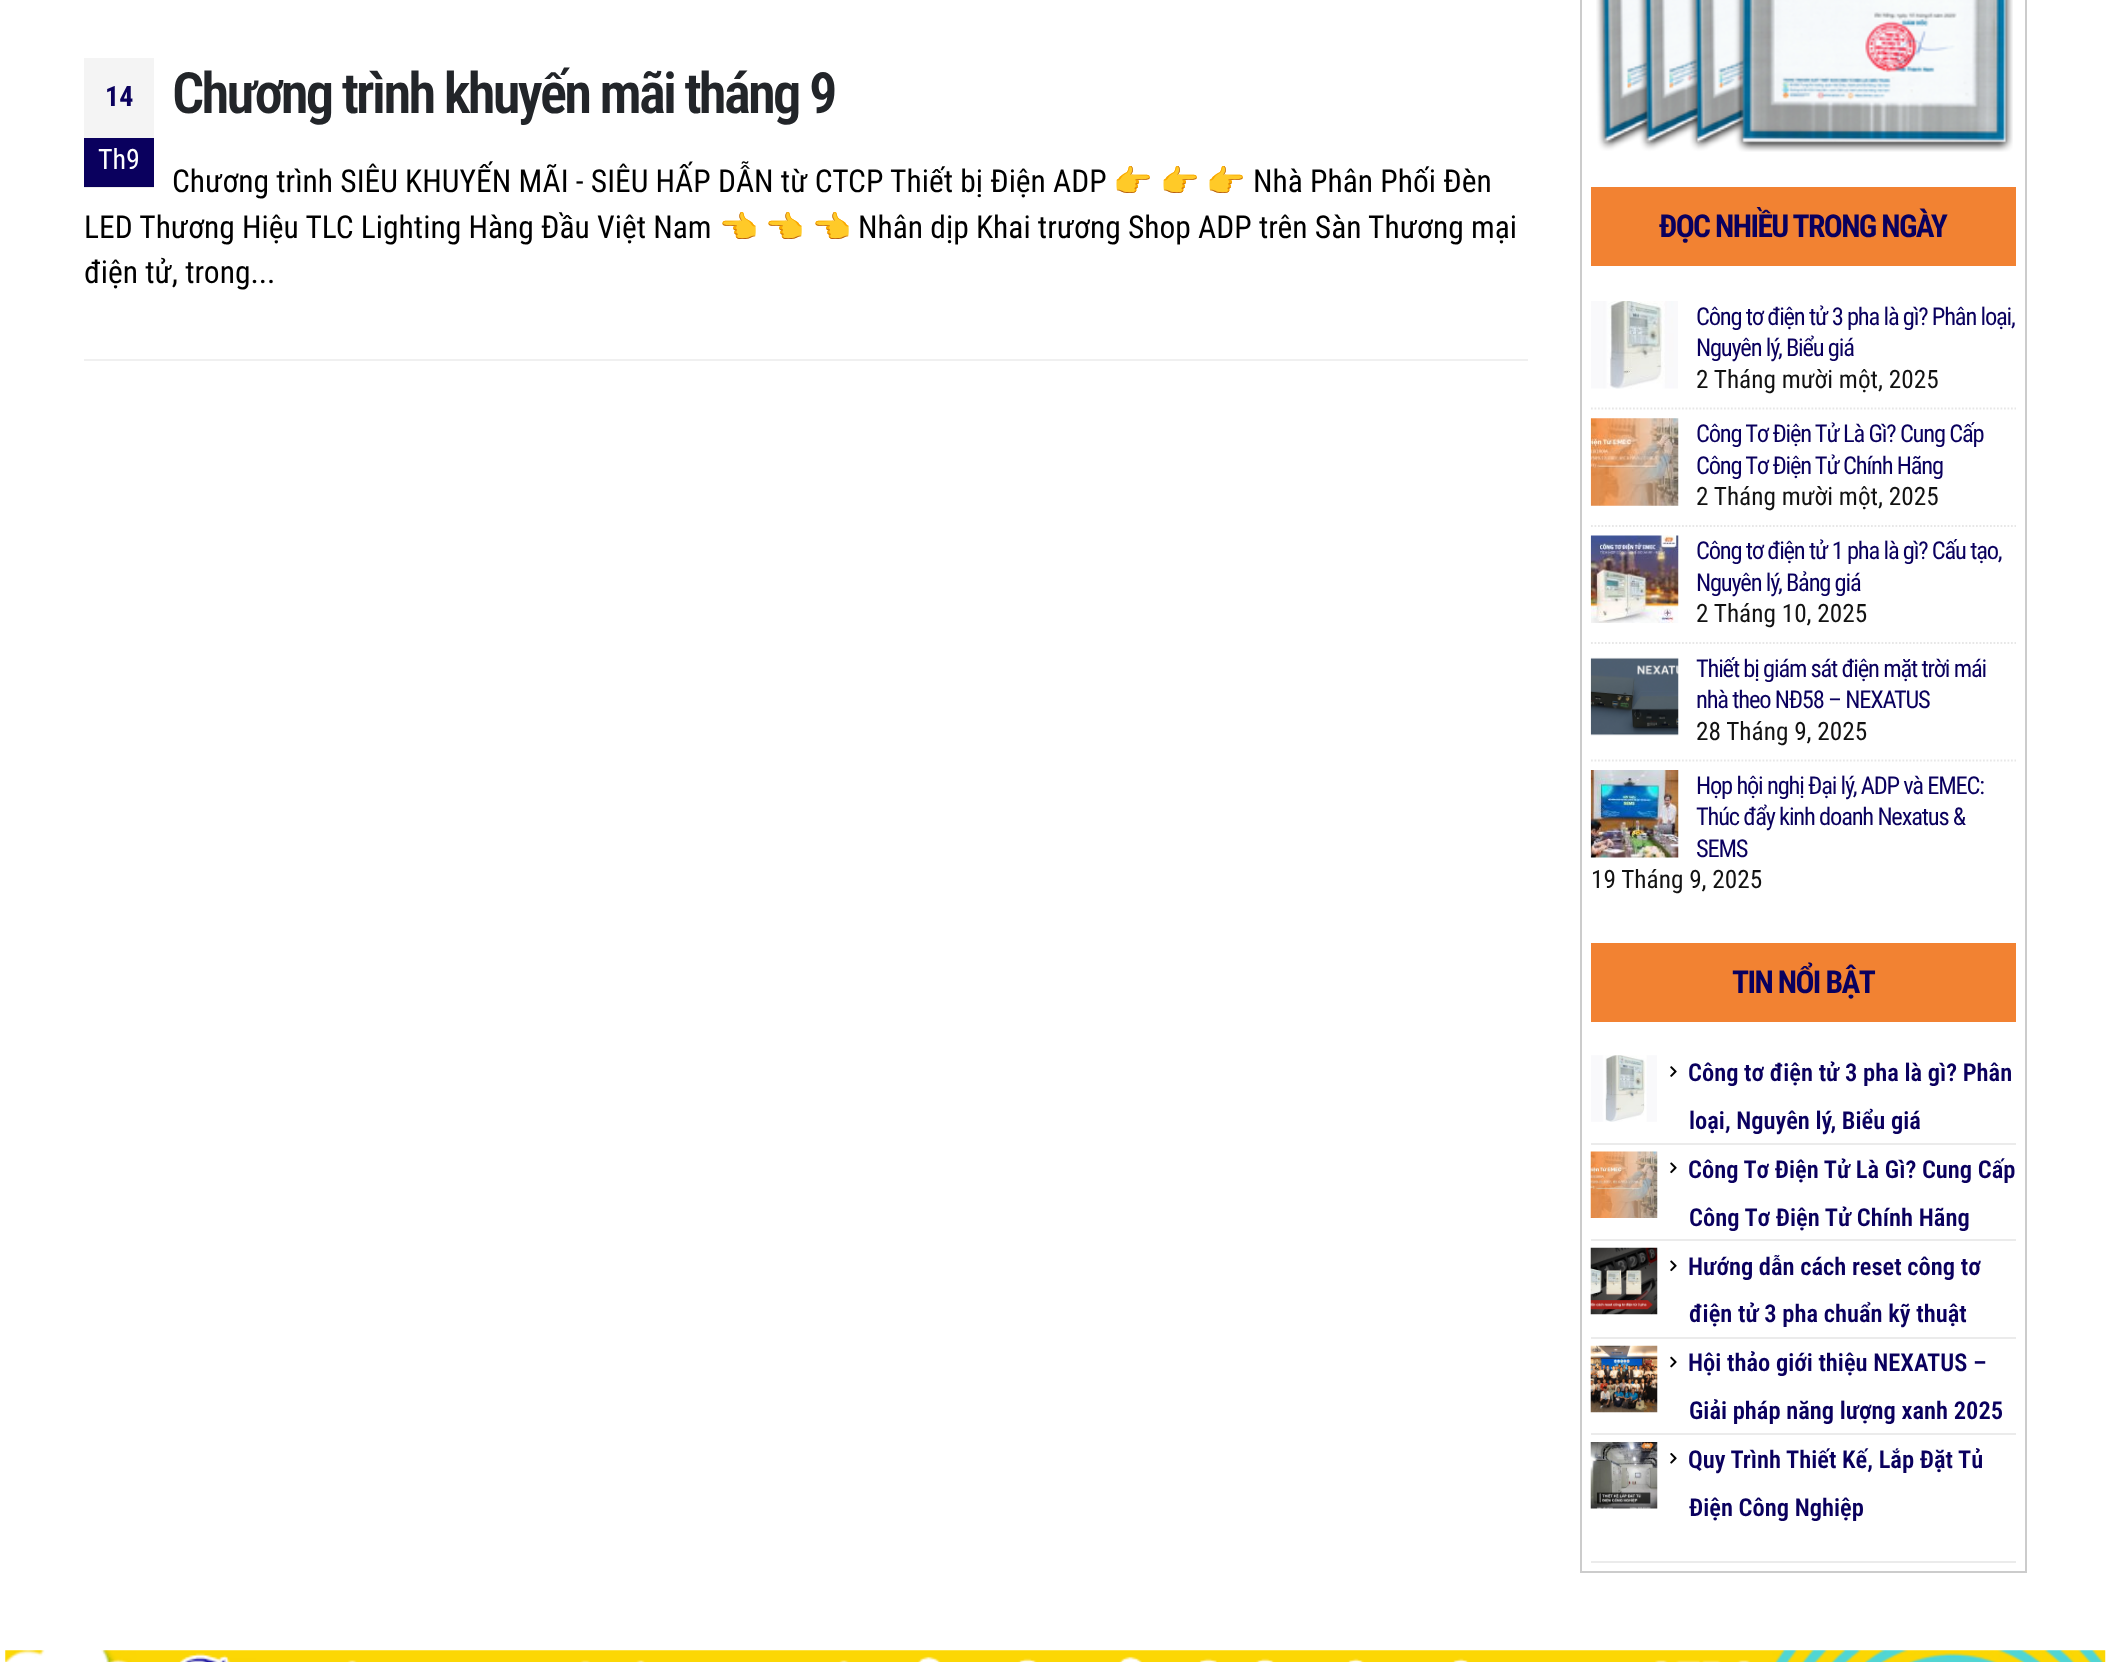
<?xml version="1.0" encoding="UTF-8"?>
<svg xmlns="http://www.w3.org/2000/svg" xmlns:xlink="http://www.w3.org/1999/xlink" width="2110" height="1662">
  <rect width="100%" height="100%" fill="#ffffff" />
  <rect x="84" y="187" width="70" height="1" fill="#ededed" />
  <rect x="84" y="359" width="1444" height="2" fill="#f0f0f0" />
  <rect x="84" y="58" width="70" height="80" fill="#f4f4f4" />
  <rect x="84" y="138" width="70" height="48" fill="#0a005e" />
  <rect x="84" y="186" width="70" height="1" fill="#090057" />
  <rect x="1581" y="-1" width="445" height="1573" fill="none" stroke="#cccccc" stroke-width="2" />
  <image x="1596" y="0" width="417" height="152" xlink:href="image1.png" />
  <rect x="1591" y="187" width="425" height="79" fill="#f28232" />
  <image x="1591" y="301" width="87" height="88" xlink:href="image2.png" />
  <path d="M 1591 408.5 h 425" fill="none" stroke="#e7e7e7" stroke-width="1.8" stroke-dasharray="1.75 1.75" />
  <image x="1590" y="418" width="89" height="88" xlink:href="image3.png" />
  <path d="M 1591 526 h 425" fill="none" stroke="#e7e7e7" stroke-width="1.8" stroke-dasharray="1.75 1.75" />
  <image x="1590" y="535" width="89" height="88" xlink:href="image4.png" />
  <path d="M 1591 643 h 425" fill="none" stroke="#e7e7e7" stroke-width="1.8" stroke-dasharray="1.75 1.75" />
  <image x="1590" y="657" width="89" height="79" xlink:href="image5.png" />
  <path d="M 1591 760.5 h 425" fill="none" stroke="#e7e7e7" stroke-width="1.8" stroke-dasharray="1.75 1.75" />
  <image x="1590" y="770" width="89" height="88" xlink:href="image6.png" />
  <rect x="1591" y="943" width="425" height="79" fill="#f28232" />
  <image x="1591" y="1055" width="66" height="67" xlink:href="image7.png" />
  <image x="1670" y="1066" width="7" height="11" xlink:href="image8.png" />
  <rect x="1591" y="1143" width="425" height="2" fill="#ebebeb" />
  <image x="1590" y="1151" width="68" height="67" xlink:href="image9.png" />
  <image x="1670" y="1162" width="7" height="12" xlink:href="image10.png" />
  <rect x="1591" y="1239" width="425" height="2" fill="#ebebeb" />
  <image x="1590" y="1247" width="68" height="68" xlink:href="image11.png" />
  <image x="1670" y="1260" width="7" height="12" xlink:href="image10.png" />
  <rect x="1591" y="1337" width="425" height="2" fill="#ebebeb" />
  <image x="1590" y="1345" width="68" height="68" xlink:href="image12.png" />
  <image x="1670" y="1356" width="7" height="12" xlink:href="image13.png" />
  <rect x="1591" y="1433" width="425" height="2" fill="#ebebeb" />
  <image x="1590" y="1442" width="68" height="67" xlink:href="image14.png" />
  <image x="1670" y="1453" width="7" height="11" xlink:href="image15.png" />
  <rect x="1591" y="1561" width="425" height="2" fill="#ebebeb" />
  <image x="5" y="1650" width="2101" height="12" xlink:href="image16.png" />
  <text x="172" y="113" style="font-family: Roboto Condensed; font-size: 56.75px; font-weight: 600; letter-spacing: -2.8px; fill: #222529">Chương trình khuyến mãi tháng 9</text>
  <text x="172" y="192" style="font-family: Roboto Condensed; font-size: 31.5px; fill: #000000">Chương trình SIÊU KHUYẾN MÃI - SIÊU HẤP DẪN từ CTCP Thiết bị Điện ADP</text>
  <text x="1113" y="192" style="font-family: Noto Color Emoji; font-size: 31.5px; fill: #000000">👉</text>
  <text x="1160" y="192" style="font-family: Noto Color Emoji; font-size: 31.5px; fill: #000000">👉</text>
  <text x="1206" y="192" style="font-family: Noto Color Emoji; font-size: 31.5px; fill: #000000">👉</text>
  <text x="1253" y="192" style="font-family: Roboto Condensed; font-size: 31.5px; fill: #000000">Nhà Phân Phối Đèn</text>
  <text x="84" y="238" style="font-family: Roboto Condensed; font-size: 31.5px; fill: #000000">LED Thương Hiệu TLC Lighting Hàng Đầu Việt Nam</text>
  <text x="719" y="238" style="font-family: Noto Color Emoji; font-size: 31.5px; fill: #000000">👈</text>
  <text x="765" y="238" style="font-family: Noto Color Emoji; font-size: 31.5px; fill: #000000">👈</text>
  <text x="812" y="238" style="font-family: Noto Color Emoji; font-size: 31.5px; fill: #000000">👈</text>
  <text x="858" y="238" style="font-family: Roboto Condensed; font-size: 31.5px; fill: #000000">Nhân dịp Khai trương Shop ADP trên Sàn Thương mại</text>
  <text x="84" y="283" style="font-family: Roboto Condensed; font-size: 31.5px; fill: #000000">điện tử, trong...</text>
  <text x="105" y="106" style="font-family: Roboto Condensed; font-size: 28px; font-weight: bold; fill: #0a005e">14</text>
  <text x="98" y="169" style="font-family: Roboto Condensed; font-size: 28px; fill: #ffffff">Th9</text>
  <text x="1659" y="237" style="font-family: Roboto Condensed; font-size: 31.5px; font-weight: bold; letter-spacing: -1.6px; fill: #0a005e">ĐỌC NHIỀU TRONG NGÀY</text>
  <text x="1696" y="325" style="font-family: Roboto Condensed; font-size: 24.5px; letter-spacing: -1.2px; fill: #0a005e">Công tơ điện tử 3 pha là gì? Phân loại,</text>
  <text x="1696" y="356" style="font-family: Roboto Condensed; font-size: 24.5px; letter-spacing: -1.2px; fill: #0a005e">Nguyên lý, Biểu giá</text>
  <text x="1696" y="388" style="font-family: Roboto Condensed; font-size: 25.25px; fill: #121212">2 Tháng mười một, 2025</text>
  <text x="1696" y="442" style="font-family: Roboto Condensed; font-size: 24.5px; letter-spacing: -1.2px; fill: #0a005e">Công Tơ Điện Tử Là Gì? Cung Cấp</text>
  <text x="1696" y="474" style="font-family: Roboto Condensed; font-size: 24.5px; letter-spacing: -1.2px; fill: #0a005e">Công Tơ Điện Tử Chính Hãng</text>
  <text x="1696" y="505" style="font-family: Roboto Condensed; font-size: 25.25px; fill: #121212">2 Tháng mười một, 2025</text>
  <text x="1696" y="559" style="font-family: Roboto Condensed; font-size: 24.5px; letter-spacing: -1.2px; fill: #0a005e">Công tơ điện tử 1 pha là gì? Cấu tạo,</text>
  <text x="1696" y="591" style="font-family: Roboto Condensed; font-size: 24.5px; letter-spacing: -1.2px; fill: #0a005e">Nguyên lý, Bảng giá</text>
  <text x="1696" y="622" style="font-family: Roboto Condensed; font-size: 25.25px; fill: #121212">2 Tháng 10, 2025</text>
  <text x="1696" y="677" style="font-family: Roboto Condensed; font-size: 24.5px; letter-spacing: -1.2px; fill: #0a005e">Thiết bị giám sát điện mặt trời mái</text>
  <text x="1696" y="708" style="font-family: Roboto Condensed; font-size: 24.5px; letter-spacing: -1.2px; fill: #0a005e">nhà theo NĐ58 – NEXATUS</text>
  <text x="1696" y="740" style="font-family: Roboto Condensed; font-size: 25.25px; fill: #121212">28 Tháng 9, 2025</text>
  <text x="1696" y="794" style="font-family: Roboto Condensed; font-size: 24.5px; letter-spacing: -1.2px; fill: #0a005e">Họp hội nghị Đại lý, ADP và EMEC:</text>
  <text x="1696" y="825" style="font-family: Roboto Condensed; font-size: 24.5px; letter-spacing: -1.2px; fill: #0a005e">Thúc đẩy kinh doanh Nexatus &amp;</text>
  <text x="1696" y="857" style="font-family: Roboto Condensed; font-size: 24.5px; letter-spacing: -1.2px; fill: #0a005e">SEMS</text>
  <text x="1591" y="888" style="font-family: Roboto Condensed; font-size: 25.25px; fill: #121212">19 Tháng 9, 2025</text>
  <text x="1732" y="993" style="font-family: Roboto Condensed; font-size: 31.5px; font-weight: bold; letter-spacing: -1.6px; fill: #0a005e">TIN NỔI BẬT</text>
  <text x="1688" y="1081" style="font-family: Roboto Condensed; font-size: 24.5px; font-weight: 600; fill: #0a005e">Công tơ điện tử 3 pha là gì? Phân</text>
  <text x="1689" y="1129" style="font-family: Roboto Condensed; font-size: 24.5px; font-weight: 600; fill: #0a005e">loại, Nguyên lý, Biểu giá</text>
  <text x="1688" y="1178" style="font-family: Roboto Condensed; font-size: 24.5px; font-weight: 600; fill: #0a005e">Công Tơ Điện Tử Là Gì? Cung Cấp</text>
  <text x="1689" y="1226" style="font-family: Roboto Condensed; font-size: 24.5px; font-weight: 600; fill: #0a005e">Công Tơ Điện Tử Chính Hãng</text>
  <text x="1688" y="1275" style="font-family: Roboto Condensed; font-size: 24.5px; font-weight: 600; fill: #0a005e">Hướng dẫn cách reset công tơ</text>
  <text x="1689" y="1322" style="font-family: Roboto Condensed; font-size: 24.5px; font-weight: 600; fill: #0a005e">điện tử 3 pha chuẩn kỹ thuật</text>
  <text x="1688" y="1371" style="font-family: Roboto Condensed; font-size: 24.5px; font-weight: 600; fill: #0a005e">Hội thảo giới thiệu NEXATUS –</text>
  <text x="1689" y="1419" style="font-family: Roboto Condensed; font-size: 24.5px; font-weight: 600; fill: #0a005e">Giải pháp năng lượng xanh 2025</text>
  <text x="1688" y="1468" style="font-family: Roboto Condensed; font-size: 24.5px; font-weight: 600; fill: #0a005e">Quy Trình Thiết Kế, Lắp Đặt Tủ</text>
  <text x="1689" y="1516" style="font-family: Roboto Condensed; font-size: 24.5px; font-weight: 600; fill: #0a005e">Điện Công Nghiệp</text>
</svg>
